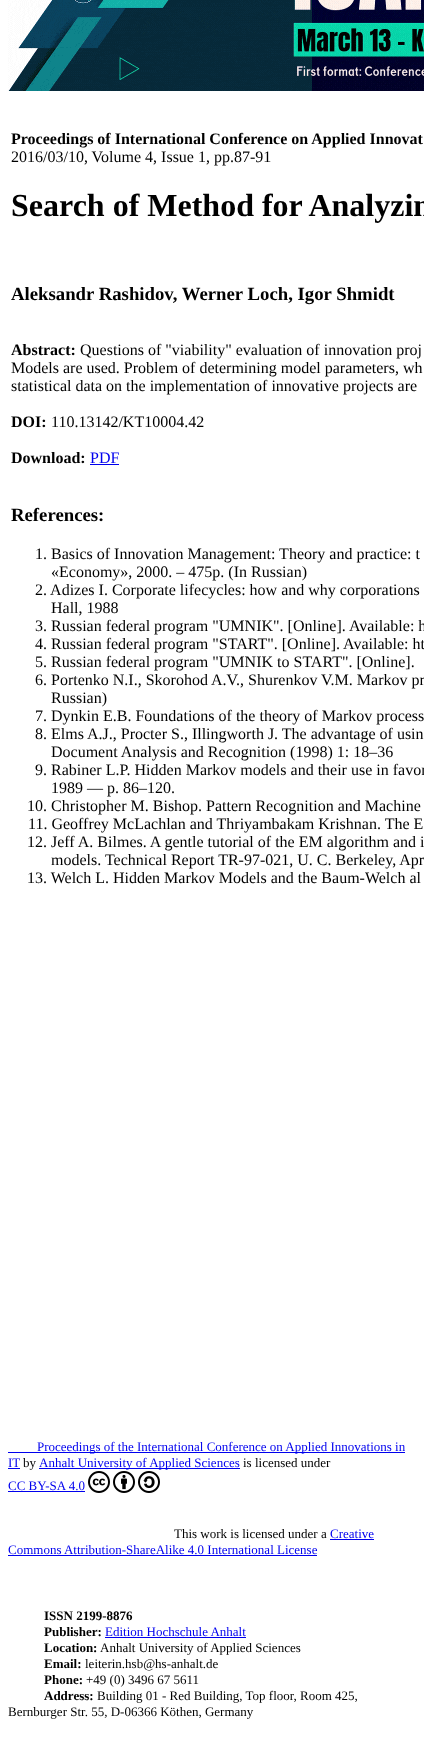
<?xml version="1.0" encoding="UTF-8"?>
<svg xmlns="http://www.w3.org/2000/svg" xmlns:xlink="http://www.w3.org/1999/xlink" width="424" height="1747">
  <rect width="100%" height="100%" fill="#ffffff" />
  <image x="8" y="0" width="416" height="91" xlink:href="image1.png" />
  <rect x="90" y="464" width="29" height="1" fill="#0000ee" />
  <rect x="8" y="1452" width="397" height="1" fill="#0000ee" />
  <rect x="8" y="1468" width="12" height="1" fill="#0000ee" />
  <rect x="39" y="1468" width="201" height="1" fill="#0000ee" />
  <rect x="8" y="1491" width="77" height="1" fill="#0000ee" />
  <image x="88" y="1471" width="22" height="22" xlink:href="image2.png" />
  <image x="113" y="1471" width="22" height="22" xlink:href="image3.png" />
  <image x="138" y="1471" width="22" height="22" xlink:href="image4.png" />
  <rect x="330" y="1539" width="44" height="1" fill="#0000ee" />
  <rect x="8" y="1555" width="309" height="1" fill="#0000ee" />
  <rect x="105" y="1637" width="141" height="1" fill="#0000ee" />
  <text x="11" y="144" style="font-family: Liberation Serif; font-size: 16px; font-weight: bold; fill: #000000">Proceedings of International Conference on Applied Innovat</text>
  <text x="11" y="162" style="font-family: Liberation Serif; font-size: 16px; fill: #000000">2016/03/10, Volume 4, Issue 1, pp.87-91</text>
  <text x="11" y="216" style="font-family: Liberation Serif; font-size: 32px; font-weight: bold; fill: #000000">Search of Method for Analyzin</text>
  <text x="11" y="300" style="font-family: Liberation Serif; font-size: 18.75px; font-weight: bold; fill: #000000">Aleksandr Rashidov, Werner Loch, Igor Shmidt</text>
  <text x="11" y="355" style="font-family: Liberation Serif; font-size: 16px; font-weight: bold; fill: #000000">Abstract:</text>
  <text x="80" y="355" style="font-family: Liberation Serif; font-size: 16px; fill: #000000">Questions of "viability" evaluation of innovation proj</text>
  <text x="11" y="373" style="font-family: Liberation Serif; font-size: 16px; fill: #000000">Models are used. Problem of determining model parameters, wh</text>
  <text x="11" y="391" style="font-family: Liberation Serif; font-size: 16px; fill: #000000">statistical data on the implementation of innovative projects are</text>
  <text x="11" y="427" style="font-family: Liberation Serif; font-size: 16px; font-weight: bold; fill: #000000">DOI:</text>
  <text x="51" y="427" style="font-family: Liberation Serif; font-size: 16px; fill: #000000">110.13142/KT10004.42</text>
  <text x="11" y="463" style="font-family: Liberation Serif; font-size: 16px; font-weight: bold; fill: #000000">Download:</text>
  <text x="90" y="463" style="font-family: Liberation Serif; font-size: 16px; fill: #0000ee">PDF</text>
  <text x="11" y="521" style="font-family: Liberation Serif; font-size: 18.75px; font-weight: bold; fill: #000000">References:</text>
  <text x="35" y="559" style="font-family: Liberation Serif; font-size: 16px; fill: #000000">1. Basics of Innovation Management: Theory and practice: t</text>
  <text x="51" y="577" style="font-family: Liberation Serif; font-size: 16px; fill: #000000">«Economy», 2000. – 475p. (In Russian)</text>
  <text x="35" y="595" style="font-family: Liberation Serif; font-size: 16px; fill: #000000">2. Adizes I. Corporate lifecycles: how and why corporations</text>
  <text x="51" y="613" style="font-family: Liberation Serif; font-size: 16px; fill: #000000">Hall, 1988</text>
  <text x="35" y="631" style="font-family: Liberation Serif; font-size: 16px; fill: #000000">3. Russian federal program "UMNIK". [Online]. Available: h</text>
  <text x="35" y="649" style="font-family: Liberation Serif; font-size: 16px; fill: #000000">4. Russian federal program "START". [Online]. Available: ht</text>
  <text x="35" y="667" style="font-family: Liberation Serif; font-size: 16px; fill: #000000">5. Russian federal program "UMNIK to START". [Online].</text>
  <text x="35" y="685" style="font-family: Liberation Serif; font-size: 16px; fill: #000000">6. Portenko N.I., Skorohod A.V., Shurenkov V.M. Markov pr</text>
  <text x="51" y="703" style="font-family: Liberation Serif; font-size: 16px; fill: #000000">Russian)</text>
  <text x="35" y="721" style="font-family: Liberation Serif; font-size: 16px; fill: #000000">7. Dynkin E.B. Foundations of the theory of Markov process</text>
  <text x="35" y="739" style="font-family: Liberation Serif; font-size: 16px; fill: #000000">8. Elms A.J., Procter S., Illingworth J. The advantage of usin</text>
  <text x="51" y="757" style="font-family: Liberation Serif; font-size: 16px; fill: #000000">Document Analysis and Recognition (1998) 1: 18–36</text>
  <text x="35" y="775" style="font-family: Liberation Serif; font-size: 16px; fill: #000000">9. Rabiner L.P. Hidden Markov models and their use in favor</text>
  <text x="51" y="793" style="font-family: Liberation Serif; font-size: 16px; fill: #000000">1989 — p. 86–120.</text>
  <text x="27" y="811" style="font-family: Liberation Serif; font-size: 16px; fill: #000000">10. Christopher M. Bishop. Pattern Recognition and Machine</text>
  <text x="28" y="829" style="font-family: Liberation Serif; font-size: 16px; fill: #000000">11. Geoffrey McLachlan and Thriyambakam Krishnan. The E</text>
  <text x="27" y="847" style="font-family: Liberation Serif; font-size: 16px; fill: #000000">12. Jeff A. Bilmes. A gentle tutorial of the EM algorithm and i</text>
  <text x="51" y="865" style="font-family: Liberation Serif; font-size: 16px; fill: #000000">models. Technical Report TR-97-021, U. C. Berkeley, Apr</text>
  <text x="27" y="883" style="font-family: Liberation Serif; font-size: 16px; fill: #000000">13. Welch L. Hidden Markov Models and the Baum-Welch al</text>
  <text x="37" y="1451" style="font-family: Liberation Serif; font-size: 13px; fill: #0000ee">Proceedings of the International Conference on Applied Innovations in</text>
  <text x="8" y="1467" style="font-family: Liberation Serif; font-size: 13px; fill: #0000ee">IT</text>
  <text x="23" y="1467" style="font-family: Liberation Serif; font-size: 13px; fill: #000000">by</text>
  <text x="39" y="1467" style="font-family: Liberation Serif; font-size: 13px; fill: #0000ee">Anhalt University of Applied Sciences</text>
  <text x="243" y="1467" style="font-family: Liberation Serif; font-size: 13px; fill: #000000">is licensed under</text>
  <text x="8" y="1490" style="font-family: Liberation Serif; font-size: 13px; fill: #0000ee">CC BY-SA 4.0</text>
  <text x="174" y="1538" style="font-family: Liberation Serif; font-size: 13px; fill: #000000">This work is licensed under a</text>
  <text x="330" y="1538" style="font-family: Liberation Serif; font-size: 13px; fill: #0000ee">Creative</text>
  <text x="8" y="1554" style="font-family: Liberation Serif; font-size: 13px; fill: #0000ee">Commons Attribution-ShareAlike 4.0 International License</text>
  <text x="44" y="1620" style="font-family: Liberation Serif; font-size: 13px; font-weight: bold; fill: #000000">ISSN 2199-8876</text>
  <text x="44" y="1636" style="font-family: Liberation Serif; font-size: 13px; font-weight: bold; fill: #000000">Publisher:</text>
  <text x="105" y="1636" style="font-family: Liberation Serif; font-size: 13px; fill: #0000ee">Edition Hochschule Anhalt</text>
  <text x="44" y="1652" style="font-family: Liberation Serif; font-size: 13px; font-weight: bold; fill: #000000">Location:</text>
  <text x="100" y="1652" style="font-family: Liberation Serif; font-size: 13px; fill: #000000">Anhalt University of Applied Sciences</text>
  <text x="44" y="1668" style="font-family: Liberation Serif; font-size: 13px; font-weight: bold; fill: #000000">Email:</text>
  <text x="85" y="1668" style="font-family: Liberation Serif; font-size: 13px; fill: #000000">leiterin.hsb@hs-anhalt.de</text>
  <text x="44" y="1684" style="font-family: Liberation Serif; font-size: 13px; font-weight: bold; fill: #000000">Phone:</text>
  <text x="86" y="1684" style="font-family: Liberation Serif; font-size: 13px; fill: #000000">+49 (0) 3496 67 5611</text>
  <text x="44" y="1700" style="font-family: Liberation Serif; font-size: 13px; font-weight: bold; fill: #000000">Address:</text>
  <text x="97" y="1700" style="font-family: Liberation Serif; font-size: 13px; fill: #000000">Building 01 - Red Building, Top floor, Room 425,</text>
  <text x="8" y="1716" style="font-family: Liberation Serif; font-size: 13px; fill: #000000">Bernburger Str. 55, D-06366 Köthen, Germany</text>
</svg>
